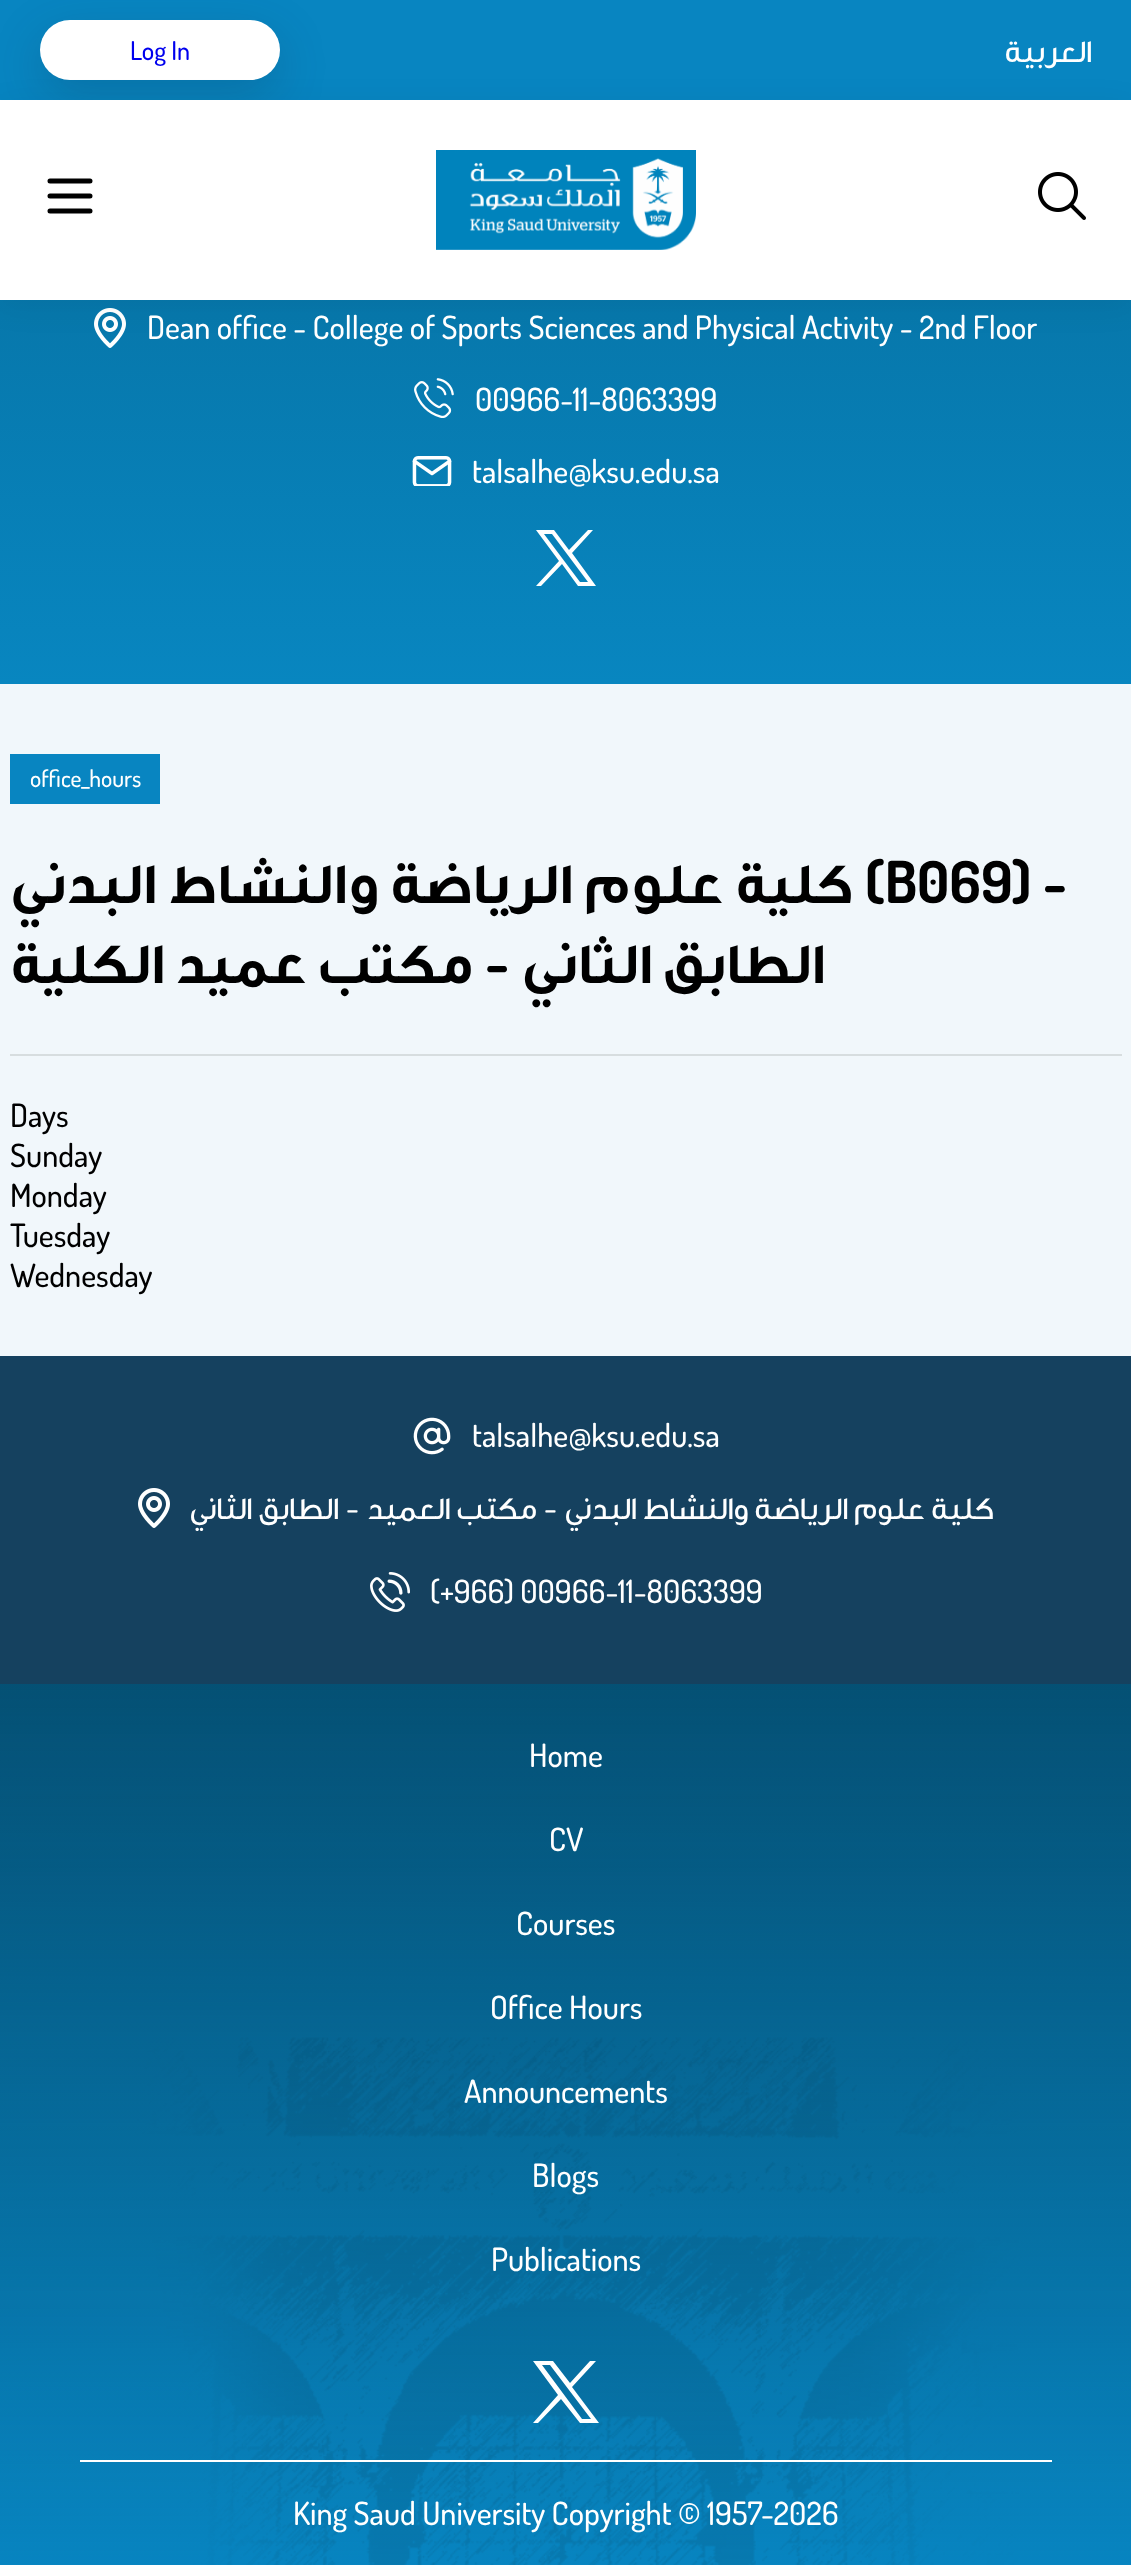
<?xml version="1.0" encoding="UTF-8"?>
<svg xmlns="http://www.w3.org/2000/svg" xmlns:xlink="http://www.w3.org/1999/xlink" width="1131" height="2565">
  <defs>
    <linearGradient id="g1" gradientUnits="userSpaceOnUse" x1="566" y1="-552" x2="566" y2="684"><stop offset="0" stop-color="#05577d" /><stop offset="1" stop-color="#0886c0" /></linearGradient>
  </defs>
  <rect width="100%" height="100%" fill="#f1f7fb" />
  <rect width="1131" height="100" fill="#0885c1" />
  <rect x="40" y="36" width="240" height="60" rx="30" fill="#0e2a3d" fill-opacity="0.2" filter="blur(24px)" />
  <rect x="40" y="20" width="240" height="60" rx="30" fill="#ffffff" />
  <rect y="300" width="1131" height="384" fill="url(#g1)" />
  <image x="94" y="308" width="32" height="40" xlink:href="image3.png" />
  <rect y="106" width="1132" height="200" fill="#000000" fill-opacity="0.05" filter="blur(16px)" />
  <rect y="100" width="1131" height="200" fill="#ffffff" />
  <path d="M 50 211 h 40 m -40 -15 h 40 m -40 -15 h 40" fill="none" stroke="#000000" stroke-width="5" stroke-linecap="round" />
  <image x="436" y="150" width="260" height="100" xlink:href="image1.png" />
  <image x="1038" y="172" width="48" height="48" xlink:href="image2.png" />
  <image x="414" y="378" width="40" height="40" xlink:href="image4.png" />
  <image x="412" y="456" width="40" height="30" xlink:href="image5.png" />
  <path d="M 536 530 l 23 31 l -23 25 h 5 l 21 -22 l 16 22 h 18 l -24 -33 l 21 -23 h -5 l -19 20 l -15 -20 z m 8 4 h 8 l 36 48 h -8 z" fill="#ffffff" />
  <rect x="10" y="754" width="150" height="50" fill="#0885c1" />
  <rect x="10" y="1054" width="1112" height="2" fill="#d7dddf" />
  <rect y="1356" width="1131" height="328" fill="#15415f" />
  <image x="413" y="1417" width="38" height="38" xlink:href="image6.png" />
  <image x="138" y="1488" width="32" height="40" xlink:href="image7.png" />
  <image x="370" y="1572" width="40" height="40" xlink:href="image8.png" />
  <rect y="1684" width="1131" height="881" fill="#0885c1" />
  <image x="0" y="1684" width="1131" height="881" xlink:href="image9.png" />
  <path d="M 533 2361 l 25 34 l -25 28 h 5 l 23 -24 l 19 24 h 19 l -27 -36 l 24 -26 h -6 l -20 22 l -17 -22 z m 9 4 h 8 l 41 54 h -9 z" fill="#ffffff" />
  <rect x="80" y="2460" width="972" height="2" fill="#ffffff" />
  <text x="130" y="60" style="font-family: Dosis; font-size: 26px; font-weight: 500; fill: #0000ee">Log In</text>
  <text x="1092" y="62" style="font-family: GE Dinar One; font-size: 32px; font-weight: 500; direction: rtl; fill: #ffffff">العربية</text>
  <text x="147" y="339" style="font-family: Dosis; font-size: 32px; font-weight: 500; fill: #ffffff">Dean office - College of Sports Sciences and Physical Activity - 2nd Floor</text>
  <text x="475" y="411" style="font-family: Dosis; font-size: 32px; font-weight: 500; fill: #ffffff">00966-11-8063399</text>
  <text x="472" y="483" style="font-family: Dosis; font-size: 32px; font-weight: 500; fill: #ffffff">talsalhe@ksu.edu.sa</text>
  <text x="30" y="787" style="font-family: Dosis; font-size: 23.5px; font-weight: 500; fill: #ffffff">office_hours</text>
  <text x="853" y="903" word-spacing="2" style="font-family: GE Dinar One; font-size: 57.7px; font-weight: bold; direction: rtl; fill: #000000">كلية علوم الرياضة والنشاط البدني</text>
  <text x="865" y="903" style="font-family: Dosis; font-size: 57.7px; font-weight: bold; fill: #000000">(B069) -</text>
  <text x="473" y="983" word-spacing="1" style="font-family: GE Dinar One; font-size: 57.7px; font-weight: bold; direction: rtl; fill: #000000">مكتب عميد الكلية</text>
  <text x="509" y="983" style="font-family: Dosis; font-size: 57.7px; font-weight: bold; direction: rtl; fill: #000000">-</text>
  <text x="825" y="983" word-spacing="1" style="font-family: GE Dinar One; font-size: 57.7px; font-weight: bold; direction: rtl; fill: #000000">الطابق الثاني</text>
  <text x="10" y="1127" style="font-family: Dosis; font-size: 32px; font-weight: 500; fill: #000000">Days</text>
  <text x="10" y="1167" style="font-family: Dosis; font-size: 32px; font-weight: 500; fill: #000000">Sunday</text>
  <text x="10" y="1207" style="font-family: Dosis; font-size: 32px; font-weight: 500; fill: #000000">Monday</text>
  <text x="10" y="1247" style="font-family: Dosis; font-size: 32px; font-weight: 500; fill: #000000">Tuesday</text>
  <text x="10" y="1287" style="font-family: Dosis; font-size: 32px; font-weight: 500; fill: #000000">Wednesday</text>
  <text x="472" y="1447" style="font-family: Dosis; font-size: 32px; font-weight: 500; fill: #ffffff">talsalhe@ksu.edu.sa</text>
  <text x="339" y="1519" word-spacing="0.5" style="font-family: GE Dinar One; font-size: 32px; font-weight: 500; direction: rtl; fill: #ffffff">الطابق الثاني</text>
  <text x="359" y="1519" style="font-family: Dosis; font-size: 32px; font-weight: 500; direction: rtl; fill: #ffffff">-</text>
  <text x="537" y="1519" word-spacing="0.5" style="font-family: GE Dinar One; font-size: 32px; font-weight: 500; direction: rtl; fill: #ffffff">مكتب العميد</text>
  <text x="557" y="1519" style="font-family: Dosis; font-size: 32px; font-weight: 500; direction: rtl; fill: #ffffff">-</text>
  <text x="994" y="1519" word-spacing="0.5" style="font-family: GE Dinar One; font-size: 32px; font-weight: 500; direction: rtl; fill: #ffffff">كلية علوم الرياضة والنشاط البدني</text>
  <text x="430" y="1603" style="font-family: Dosis; font-size: 32px; font-weight: 500; fill: #ffffff">(+966) 00966-11-8063399</text>
  <text x="529" y="1767" style="font-family: Dosis; font-size: 32px; font-weight: 500; fill: #ffffff">Home</text>
  <text x="549" y="1851" style="font-family: Dosis; font-size: 32px; font-weight: 500; fill: #ffffff">CV</text>
  <text x="516" y="1935" style="font-family: Dosis; font-size: 32px; font-weight: 500; fill: #ffffff">Courses</text>
  <text x="490" y="2019" style="font-family: Dosis; font-size: 32px; font-weight: 500; fill: #ffffff">Office Hours</text>
  <text x="464" y="2103" style="font-family: Dosis; font-size: 32px; font-weight: 500; fill: #ffffff">Announcements</text>
  <text x="532" y="2187" style="font-family: Dosis; font-size: 32px; font-weight: 500; fill: #ffffff">Blogs</text>
  <text x="491" y="2271" style="font-family: Dosis; font-size: 32px; font-weight: 500; fill: #ffffff">Publications</text>
  <text x="293" y="2525" style="font-family: Dosis; font-size: 32px; font-weight: 500; fill: #ffffff">King Saud University Copyright © 1957-2026</text>
</svg>
